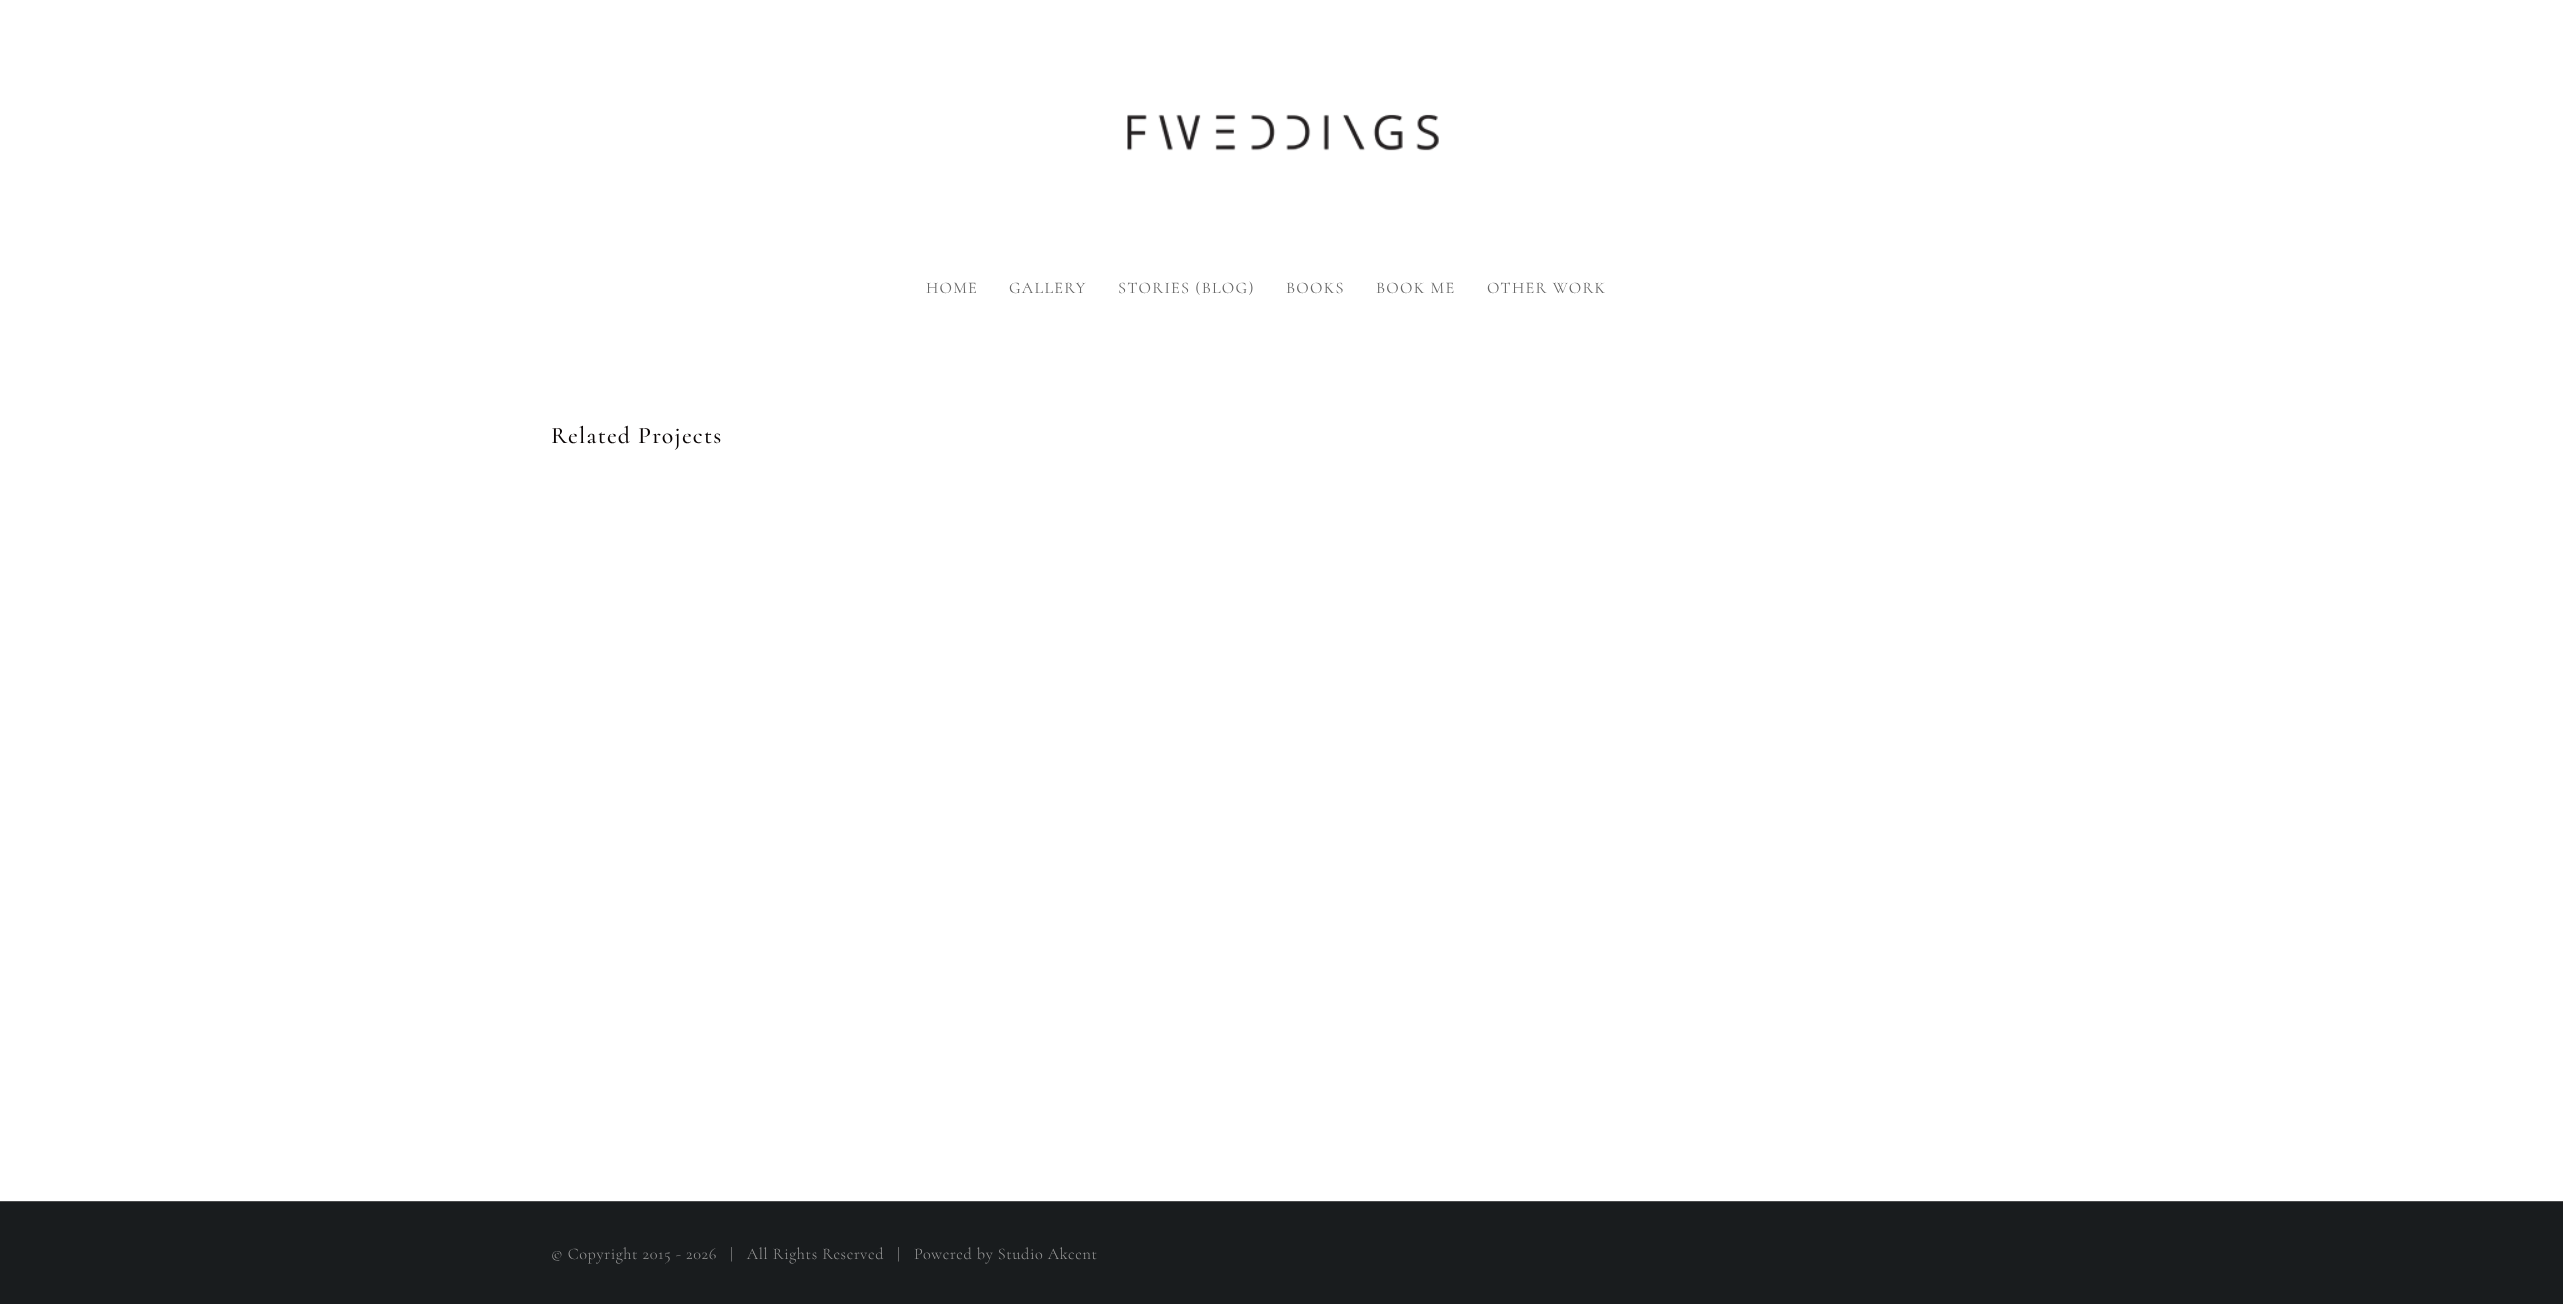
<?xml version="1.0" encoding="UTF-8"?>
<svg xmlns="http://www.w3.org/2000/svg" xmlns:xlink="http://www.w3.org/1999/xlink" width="2563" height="1304">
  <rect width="100%" height="100%" fill="#ffffff" />
  <image x="1127" y="114" width="312" height="37" xlink:href="image1.png" />
  <rect y="1202" width="2563" height="102" fill="#191c1e" />
  <rect y="1201" width="2563" height="1" fill="#4b4c4d" />
  <text x="926" y="293" style="font-family: 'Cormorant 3'; font-size: 16.25px; font-weight: 300; letter-spacing: 1.25px; fill: #686868">HOME</text>
  <text x="1009" y="293" style="font-family: 'Cormorant 3'; font-size: 16.25px; font-weight: 300; letter-spacing: 1.25px; fill: #686868">GALLERY</text>
  <text x="1118" y="293" style="font-family: 'Cormorant 3'; font-size: 16.25px; font-weight: 300; letter-spacing: 1.25px; fill: #686868">STORIES (BLOG)</text>
  <text x="1286" y="293" style="font-family: 'Cormorant 3'; font-size: 16.25px; font-weight: 300; letter-spacing: 1.25px; fill: #686868">BOOKS</text>
  <text x="1376" y="293" style="font-family: 'Cormorant 3'; font-size: 16.25px; font-weight: 300; letter-spacing: 1.25px; fill: #686868">BOOK ME</text>
  <text x="1487" y="293" style="font-family: 'Cormorant 3'; font-size: 16.25px; font-weight: 300; letter-spacing: 1.25px; fill: #686868">OTHER WORK</text>
  <text x="551" y="443" style="font-family: 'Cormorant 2'; font-size: 23.75px; font-weight: 300; letter-spacing: 1.25px; fill: #0a0505">Related Projects</text>
  <text x="551" y="1259" style="font-family: Cormorant; font-size: 16.25px; font-weight: 300; letter-spacing: 0.62px; fill: #999999" xml:space="preserve">© Copyright 2015 - 2026   |   All Rights Reserved   |   Powered by Studio Akcent</text>
</svg>
